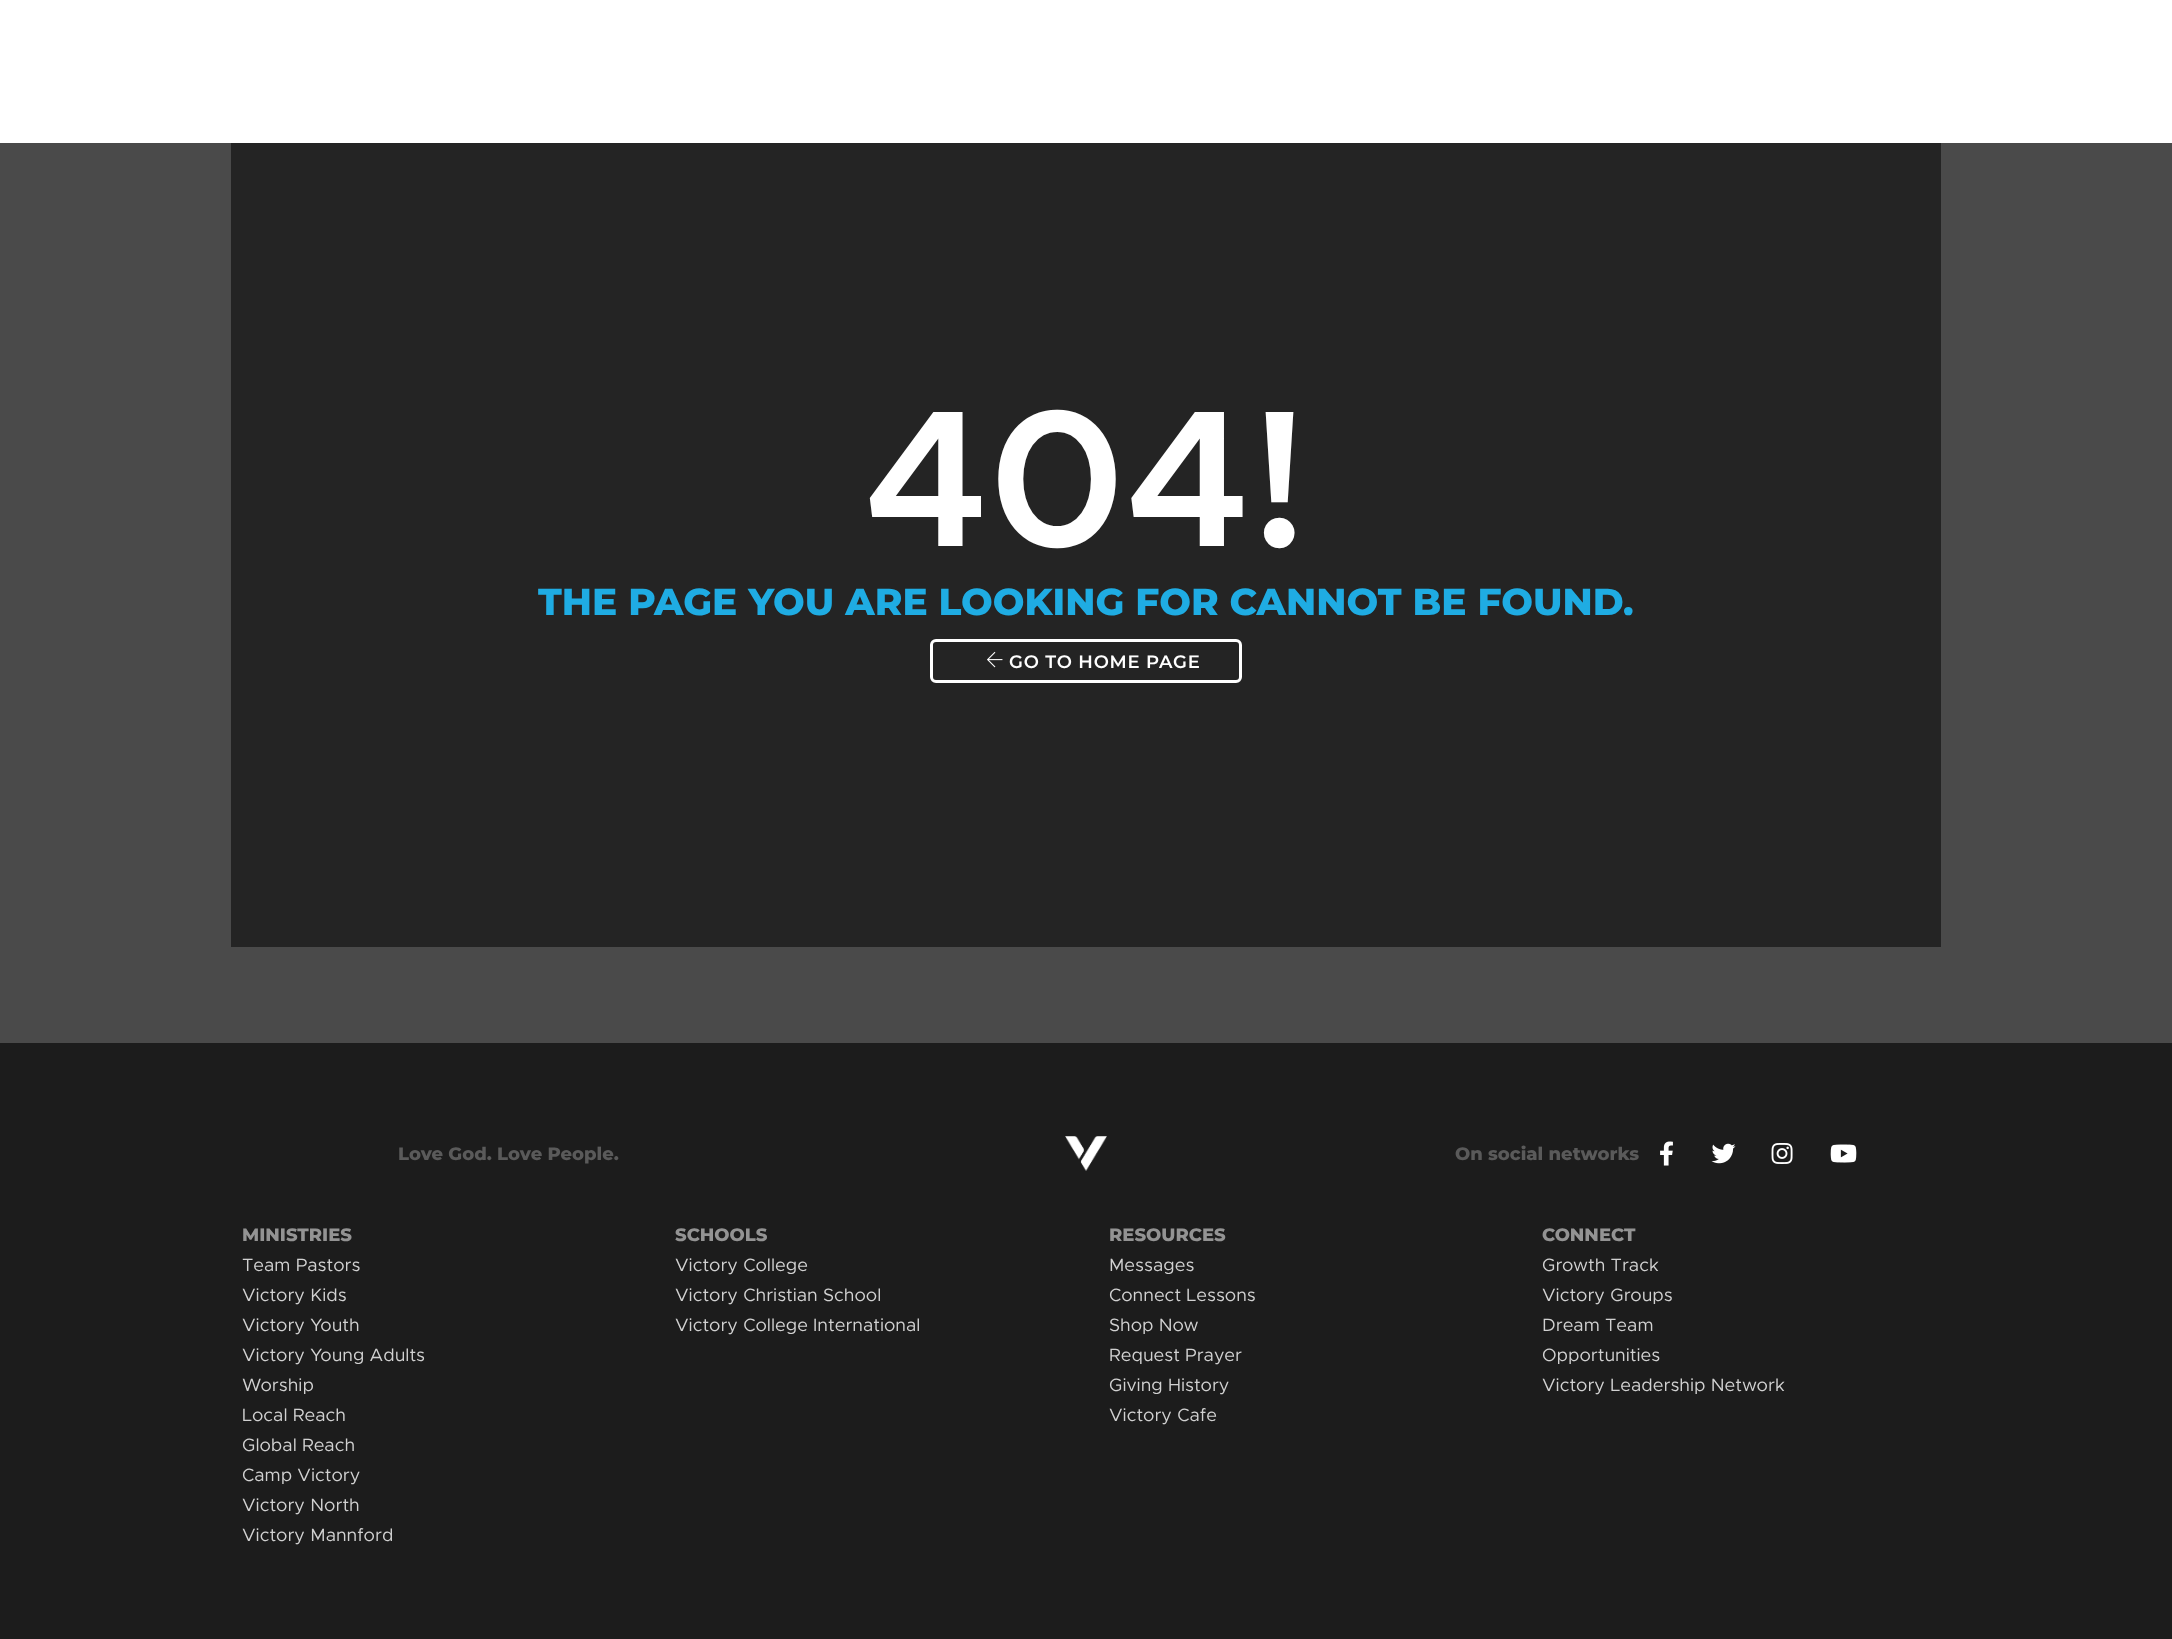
<?xml version="1.0" encoding="UTF-8"?>
<svg xmlns="http://www.w3.org/2000/svg" xmlns:xlink="http://www.w3.org/1999/xlink" width="2172" height="1639">
  <rect width="100%" height="100%" fill="#ffffff" />
  <rect y="143" width="2172" height="900" fill="#4a4a4a" />
  <rect x="231" y="143" width="1710" height="804" fill="#242424" />
  <rect x="931.5" y="640.5" width="309" height="41" rx="4.5" fill="none" stroke="#ffffff" stroke-width="3" />
  <image x="987" y="651" width="16" height="17" xlink:href="image1.png" />
  <rect y="1043" width="2172" height="596" fill="#1c1c1c" />
  <image x="1065" y="1136" width="42" height="35" xlink:href="image2.png" />
  <image x="1660" y="1141" width="13" height="25" xlink:href="image3.png" />
  <image x="1711" y="1143" width="25" height="21" xlink:href="image4.png" />
  <image x="1771" y="1143" width="22" height="21" xlink:href="image5.png" />
  <image x="1830" y="1144" width="27" height="19" xlink:href="image6.png" />
  <text x="864" y="546" style="font-family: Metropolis; font-size: 195px; font-weight: 600; fill: #ffffff">404!</text>
  <text x="538" y="615" style="font-family: Montserrat; font-size: 37.5px; font-weight: 800; fill: #1face3">THE PAGE YOU ARE LOOKING FOR CANNOT BE FOUND.</text>
  <text x="1009" y="668" style="font-family: Montserrat; font-size: 18px; font-weight: 600; letter-spacing: 0.75px; fill: #ffffff">GO TO HOME PAGE</text>
  <text x="398" y="1160" style="font-family: Montserrat; font-size: 18px; font-weight: 800; fill: #5a5a5a">Love God. Love People.</text>
  <text x="1455" y="1160" style="font-family: Montserrat; font-size: 18px; font-weight: 800; fill: #5a5a5a">On social networks</text>
  <text x="242" y="1241" style="font-family: Montserrat; font-size: 18px; font-weight: 800; fill: #939393">MINISTRIES</text>
  <text x="242" y="1271" style="font-family: Metropolis; font-size: 18px; fill: #d1d1d1">Team Pastors</text>
  <text x="242" y="1301" style="font-family: Metropolis; font-size: 18px; fill: #d1d1d1">Victory Kids</text>
  <text x="242" y="1331" style="font-family: Metropolis; font-size: 18px; fill: #d1d1d1">Victory Youth</text>
  <text x="242" y="1361" style="font-family: Metropolis; font-size: 18px; fill: #d1d1d1">Victory Young Adults</text>
  <text x="242" y="1391" style="font-family: Metropolis; font-size: 18px; fill: #d1d1d1">Worship</text>
  <text x="242" y="1421" style="font-family: Metropolis; font-size: 18px; fill: #d1d1d1">Local Reach</text>
  <text x="242" y="1451" style="font-family: Metropolis; font-size: 18px; fill: #d1d1d1">Global Reach</text>
  <text x="242" y="1481" style="font-family: Metropolis; font-size: 18px; fill: #d1d1d1">Camp Victory</text>
  <text x="242" y="1511" style="font-family: Metropolis; font-size: 18px; fill: #d1d1d1">Victory North</text>
  <text x="242" y="1541" style="font-family: Metropolis; font-size: 18px; fill: #d1d1d1">Victory Mannford</text>
  <text x="675" y="1241" style="font-family: Montserrat; font-size: 18px; font-weight: 800; fill: #939393">SCHOOLS</text>
  <text x="675" y="1271" style="font-family: Metropolis; font-size: 18px; fill: #d1d1d1">Victory College</text>
  <text x="675" y="1301" style="font-family: Metropolis; font-size: 18px; fill: #d1d1d1">Victory Christian School</text>
  <text x="675" y="1331" style="font-family: Metropolis; font-size: 18px; fill: #d1d1d1">Victory College International</text>
  <text x="1109" y="1241" style="font-family: Montserrat; font-size: 18px; font-weight: 800; fill: #939393">RESOURCES</text>
  <text x="1109" y="1271" style="font-family: Metropolis; font-size: 18px; fill: #d1d1d1">Messages</text>
  <text x="1109" y="1301" style="font-family: Metropolis; font-size: 18px; fill: #d1d1d1">Connect Lessons</text>
  <text x="1109" y="1331" style="font-family: Metropolis; font-size: 18px; fill: #d1d1d1">Shop Now</text>
  <text x="1109" y="1361" style="font-family: Metropolis; font-size: 18px; fill: #d1d1d1">Request Prayer</text>
  <text x="1109" y="1391" style="font-family: Metropolis; font-size: 18px; fill: #d1d1d1">Giving History</text>
  <text x="1109" y="1421" style="font-family: Metropolis; font-size: 18px; fill: #d1d1d1">Victory Cafe</text>
  <text x="1542" y="1241" style="font-family: Montserrat; font-size: 18px; font-weight: 800; fill: #939393">CONNECT</text>
  <text x="1542" y="1271" style="font-family: Metropolis; font-size: 18px; fill: #d1d1d1">Growth Track</text>
  <text x="1542" y="1301" style="font-family: Metropolis; font-size: 18px; fill: #d1d1d1">Victory Groups</text>
  <text x="1542" y="1331" style="font-family: Metropolis; font-size: 18px; fill: #d1d1d1">Dream Team</text>
  <text x="1542" y="1361" style="font-family: Metropolis; font-size: 18px; fill: #d1d1d1">Opportunities</text>
  <text x="1542" y="1391" style="font-family: Metropolis; font-size: 18px; fill: #d1d1d1">Victory Leadership Network</text>
</svg>
